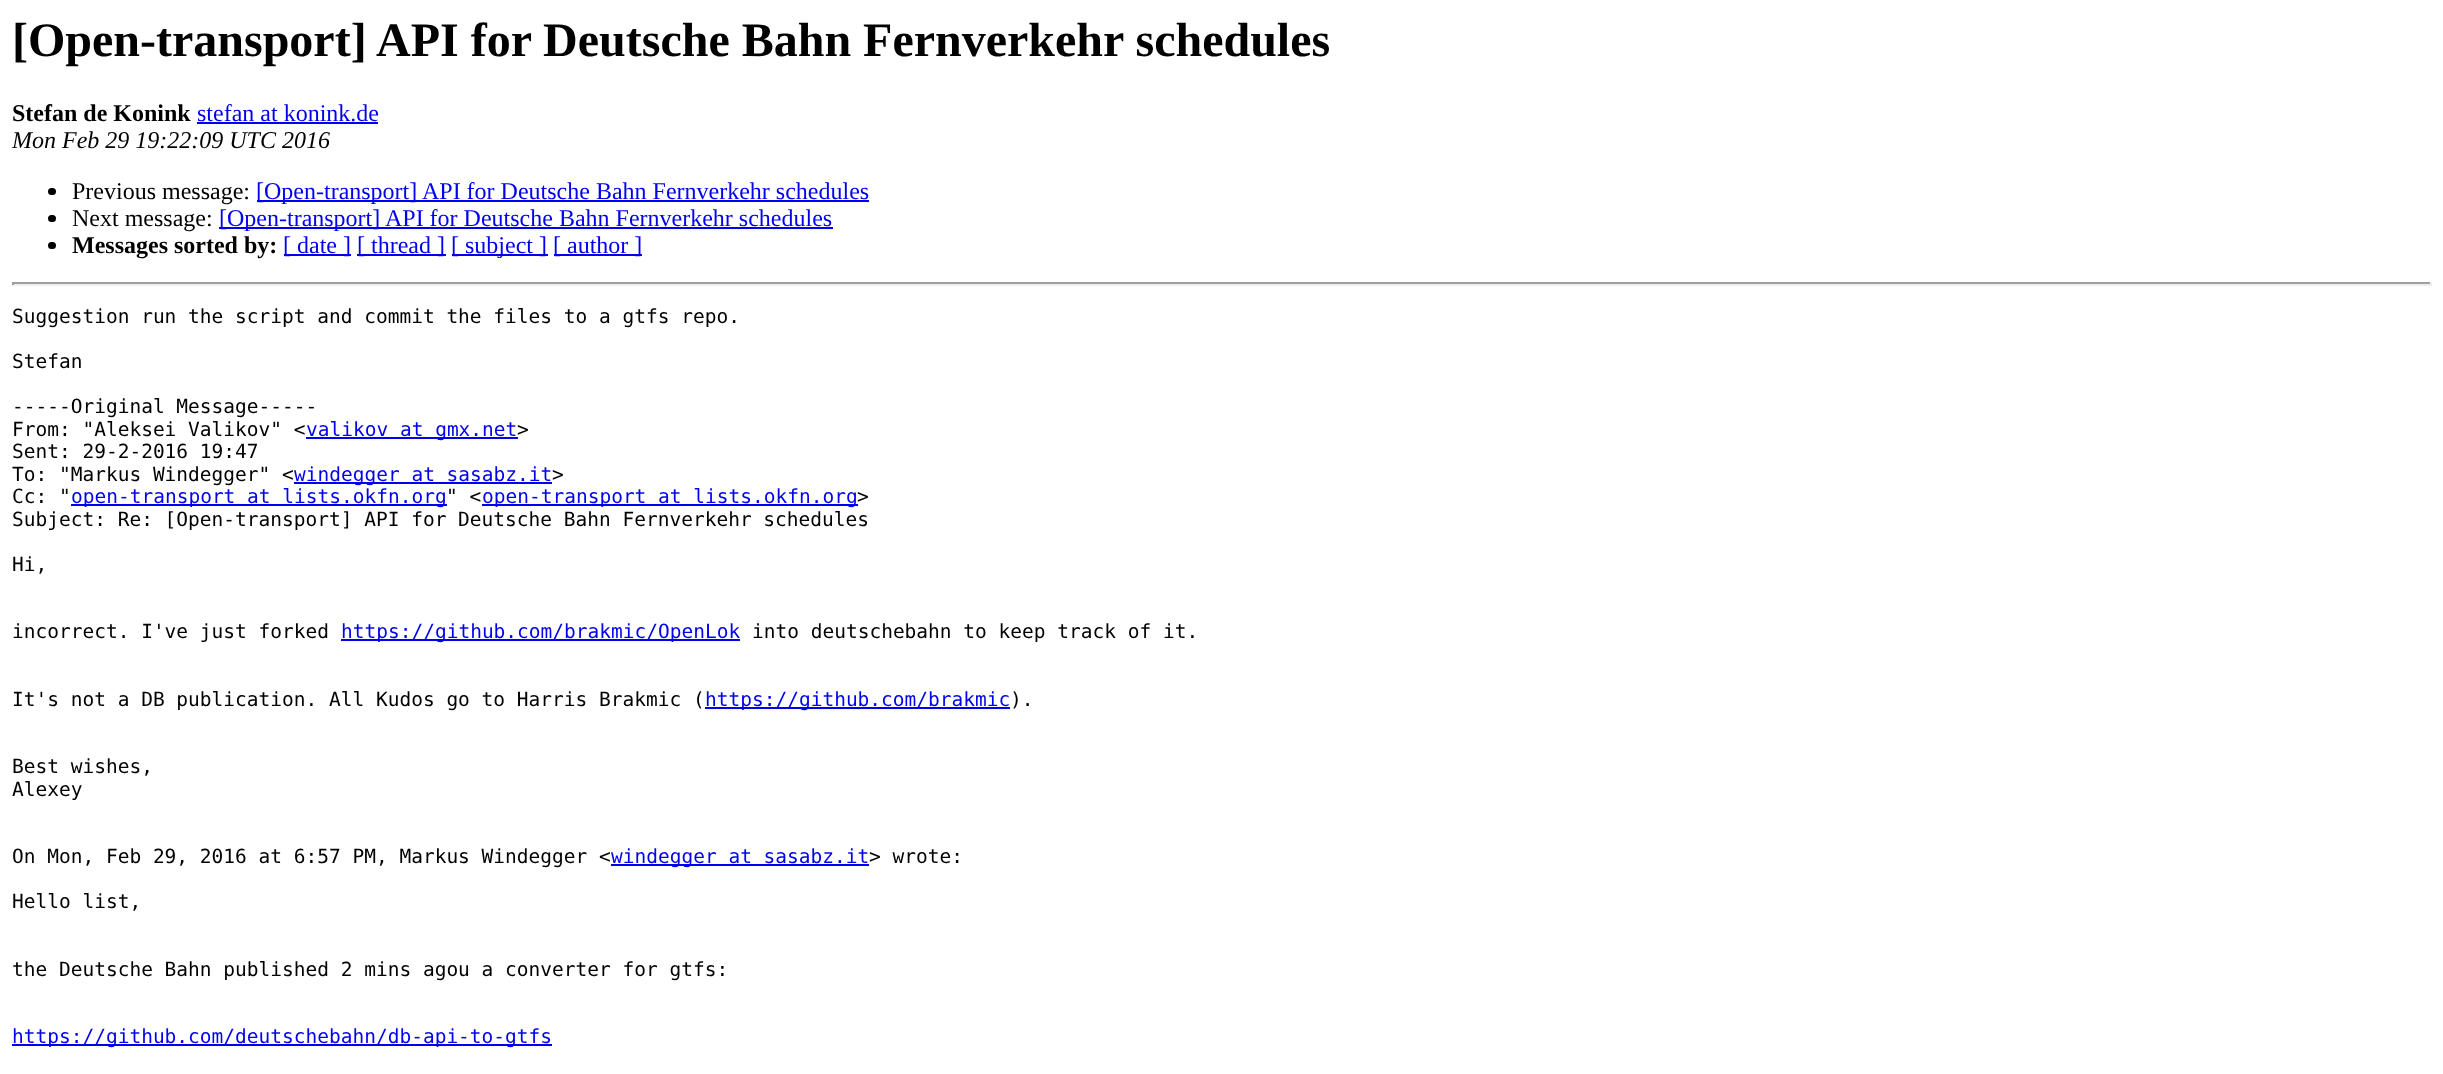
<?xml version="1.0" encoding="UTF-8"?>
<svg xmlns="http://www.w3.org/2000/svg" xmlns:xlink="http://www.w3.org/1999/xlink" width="2443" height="1074">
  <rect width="100%" height="100%" fill="#ffffff" />
  <rect x="197" y="122" width="181" height="2" fill="#0000ee" />
  <rect x="48" y="188" width="8" height="7" rx="3.5" fill="#000000" />
  <rect x="257" y="200" width="612" height="2" fill="#0000ee" />
  <rect x="48" y="215" width="8" height="7" rx="3.5" fill="#000000" />
  <rect x="219" y="227" width="614" height="2" fill="#0000ee" />
  <rect x="48" y="242" width="8" height="7" rx="3.5" fill="#000000" />
  <rect x="284" y="254" width="67" height="2" fill="#0000ee" />
  <rect x="357" y="254" width="89" height="2" fill="#0000ee" />
  <rect x="452" y="254" width="96" height="2" fill="#0000ee" />
  <rect x="554" y="254" width="88" height="2" fill="#0000ee" />
  <rect x="12" y="282" width="2420" height="2" fill="#9f9f9f" />
  <rect x="2430" y="282" width="2" height="3" fill="#eeeeee" />
  <rect x="12" y="284" width="2420" height="2" fill="#eeeeee" />
  <rect x="12" y="282" width="2" height="3" fill="#9f9f9f" />
  <rect x="306" y="437" width="212" height="2" fill="#0000ee" />
  <rect x="294" y="482" width="258" height="2" fill="#0000ee" />
  <rect x="71" y="504" width="376" height="2" fill="#0000ee" />
  <rect x="482" y="504" width="376" height="2" fill="#0000ee" />
  <rect x="341" y="639" width="399" height="2" fill="#0000ee" />
  <rect x="705" y="707" width="305" height="2" fill="#0000ee" />
  <rect x="611" y="864" width="258" height="2" fill="#0000ee" />
  <rect x="12" y="1044" width="540" height="2" fill="#0000ee" />
  <text x="12" y="56" style="font-family: Liberation Serif; font-size: 48px; font-weight: bold; fill: #000000">[Open-transport] API for Deutsche Bahn Fernverkehr schedules</text>
  <text x="12" y="121" style="font-family: Liberation Serif; font-size: 24px; font-weight: bold; fill: #000000">Stefan de Konink</text>
  <text x="197" y="121" style="font-family: Liberation Serif; font-size: 24px; fill: #0000ee">stefan at konink.de</text>
  <text x="12" y="148" style="font-family: Liberation Serif; font-size: 24px; font-style: italic; fill: #000000">Mon Feb 29 19:22:09 UTC 2016</text>
  <text x="72" y="199" style="font-family: Liberation Serif; font-size: 24px; fill: #000000">Previous message:</text>
  <text x="256" y="199" style="font-family: Liberation Serif; font-size: 24px; fill: #0000ee">[Open-transport] API for Deutsche Bahn Fernverkehr schedules</text>
  <text x="72" y="226" style="font-family: Liberation Serif; font-size: 24px; fill: #000000">Next message:</text>
  <text x="219" y="226" style="font-family: Liberation Serif; font-size: 24px; fill: #0000ee">[Open-transport] API for Deutsche Bahn Fernverkehr schedules</text>
  <text x="72" y="253" style="font-family: Liberation Serif; font-size: 24px; font-weight: bold; fill: #000000">Messages sorted by:</text>
  <text x="283" y="253" style="font-family: Liberation Serif; font-size: 24px; fill: #0000ee">[ date ]</text>
  <text x="357" y="253" style="font-family: Liberation Serif; font-size: 24px; fill: #0000ee">[ thread ]</text>
  <text x="451" y="253" style="font-family: Liberation Serif; font-size: 24px; fill: #0000ee">[ subject ]</text>
  <text x="553" y="253" style="font-family: Liberation Serif; font-size: 24px; fill: #0000ee">[ author ]</text>
  <text x="12" y="323" style="font-family: DejaVu Sans Mono; font-size: 19.5px; fill: #000000">Suggestion run the script and commit the files to a gtfs repo.</text>
  <text x="12" y="368" style="font-family: DejaVu Sans Mono; font-size: 19.5px; fill: #000000">Stefan</text>
  <text x="12" y="413" style="font-family: DejaVu Sans Mono; font-size: 19.5px; fill: #000000">-----Original Message-----</text>
  <text x="12" y="436" style="font-family: DejaVu Sans Mono; font-size: 19.5px; fill: #000000">From: "Aleksei Valikov" &lt;</text>
  <text x="306" y="436" style="font-family: DejaVu Sans Mono; font-size: 19.5px; fill: #0000ee">valikov at gmx.net</text>
  <text x="517" y="436" style="font-family: DejaVu Sans Mono; font-size: 19.5px; fill: #000000">&gt;</text>
  <text x="12" y="458" style="font-family: DejaVu Sans Mono; font-size: 19.5px; fill: #000000">Sent: 29-2-2016 19:47</text>
  <text x="12" y="481" style="font-family: DejaVu Sans Mono; font-size: 19.5px; fill: #000000">To: "Markus Windegger" &lt;</text>
  <text x="294" y="481" style="font-family: DejaVu Sans Mono; font-size: 19.5px; fill: #0000ee">windegger at sasabz.it</text>
  <text x="552" y="481" style="font-family: DejaVu Sans Mono; font-size: 19.5px; fill: #000000">&gt;</text>
  <text x="12" y="503" style="font-family: DejaVu Sans Mono; font-size: 19.5px; fill: #000000">Cc: "</text>
  <text x="71" y="503" style="font-family: DejaVu Sans Mono; font-size: 19.5px; fill: #0000ee">open-transport at lists.okfn.org</text>
  <text x="446" y="503" style="font-family: DejaVu Sans Mono; font-size: 19.5px; fill: #000000">" &lt;</text>
  <text x="482" y="503" style="font-family: DejaVu Sans Mono; font-size: 19.5px; fill: #0000ee">open-transport at lists.okfn.org</text>
  <text x="857" y="503" style="font-family: DejaVu Sans Mono; font-size: 19.5px; fill: #000000">&gt;</text>
  <text x="12" y="526" style="font-family: DejaVu Sans Mono; font-size: 19.5px; fill: #000000">Subject: Re: [Open-transport] API for Deutsche Bahn Fernverkehr schedules</text>
  <text x="12" y="571" style="font-family: DejaVu Sans Mono; font-size: 19.5px; fill: #000000">Hi,</text>
  <text x="12" y="638" style="font-family: DejaVu Sans Mono; font-size: 19.5px; fill: #000000">incorrect. I've just forked</text>
  <text x="341" y="638" style="font-family: DejaVu Sans Mono; font-size: 19.5px; fill: #0000ee">https://github.com/brakmic/OpenLok</text>
  <text x="752" y="638" style="font-family: DejaVu Sans Mono; font-size: 19.5px; fill: #000000">into deutschebahn to keep track of it.</text>
  <text x="12" y="706" style="font-family: DejaVu Sans Mono; font-size: 19.5px; fill: #000000">It's not a DB publication. All Kudos go to Harris Brakmic (</text>
  <text x="705" y="706" style="font-family: DejaVu Sans Mono; font-size: 19.5px; fill: #0000ee">https://github.com/brakmic</text>
  <text x="1010" y="706" style="font-family: DejaVu Sans Mono; font-size: 19.5px; fill: #000000">).</text>
  <text x="12" y="773" style="font-family: DejaVu Sans Mono; font-size: 19.5px; fill: #000000">Best wishes,</text>
  <text x="12" y="796" style="font-family: DejaVu Sans Mono; font-size: 19.5px; fill: #000000">Alexey</text>
  <text x="12" y="863" style="font-family: DejaVu Sans Mono; font-size: 19.5px; fill: #000000">On Mon, Feb 29, 2016 at 6:57 PM, Markus Windegger &lt;</text>
  <text x="611" y="863" style="font-family: DejaVu Sans Mono; font-size: 19.5px; fill: #0000ee">windegger at sasabz.it</text>
  <text x="869" y="863" style="font-family: DejaVu Sans Mono; font-size: 19.5px; fill: #000000">&gt; wrote:</text>
  <text x="12" y="908" style="font-family: DejaVu Sans Mono; font-size: 19.5px; fill: #000000">Hello list,</text>
  <text x="12" y="976" style="font-family: DejaVu Sans Mono; font-size: 19.5px; fill: #000000">the Deutsche Bahn published 2 mins agou a converter for gtfs:</text>
  <text x="12" y="1043" style="font-family: DejaVu Sans Mono; font-size: 19.5px; fill: #0000ee">https://github.com/deutschebahn/db-api-to-gtfs</text>
</svg>
